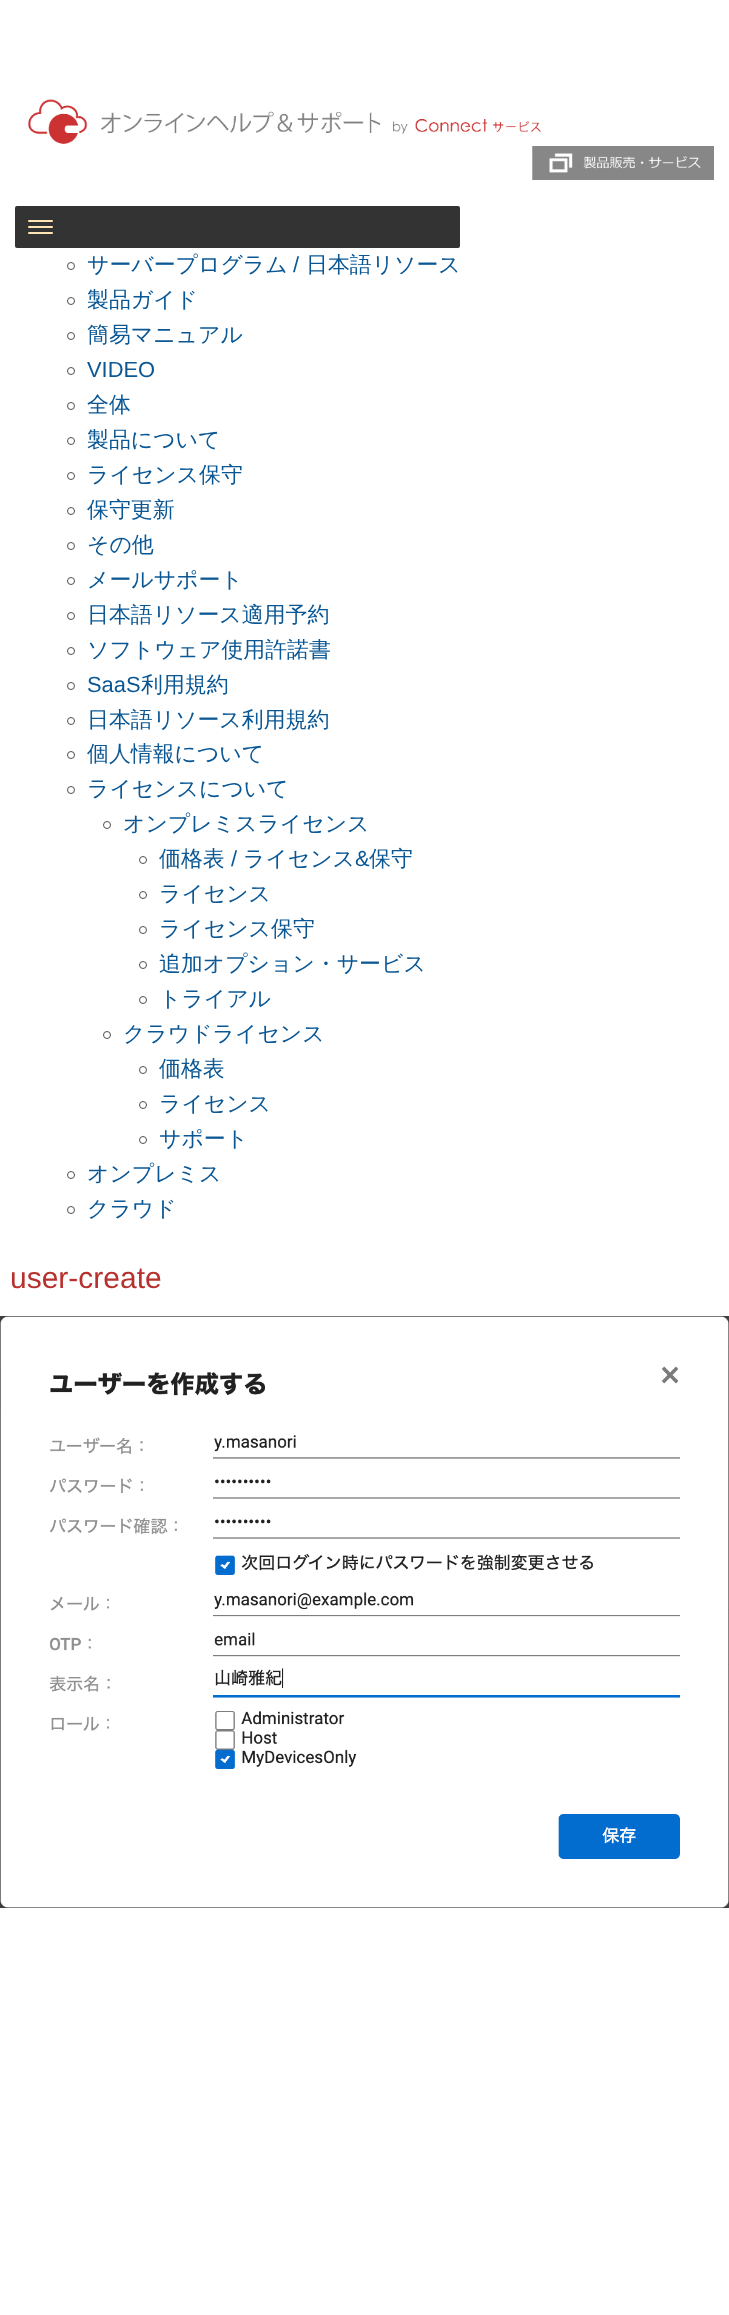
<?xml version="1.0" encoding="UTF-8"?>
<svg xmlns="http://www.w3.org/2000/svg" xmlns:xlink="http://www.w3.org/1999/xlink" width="729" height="2315">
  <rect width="100%" height="100%" fill="#ffffff" />
  <image x="28" y="99" width="513" height="45" xlink:href="image1.png" />
  <image x="532" y="146" width="182" height="34" xlink:href="image2.png" />
  <rect x="15" y="206" width="445" height="42" rx="2" fill="#333333" />
  <rect x="28" y="220" width="25" height="2" rx="1" fill="#ffe4b5" />
  <rect x="28" y="226" width="25" height="2" rx="1" fill="#ffe4b5" />
  <rect x="28" y="232" width="25" height="2" rx="1" fill="#ffe4b5" />
  <circle cx="71" cy="266" r="3.5" fill="none" stroke="#505050" />
  <circle cx="71" cy="301" r="3.5" fill="none" stroke="#505050" />
  <circle cx="71" cy="336" r="3.5" fill="none" stroke="#505050" />
  <circle cx="71" cy="371" r="3.5" fill="none" stroke="#505050" />
  <circle cx="71" cy="406" r="3.5" fill="none" stroke="#505050" />
  <circle cx="71" cy="441" r="3.5" fill="none" stroke="#505050" />
  <circle cx="71" cy="476" r="3.5" fill="none" stroke="#505050" />
  <circle cx="71" cy="511" r="3.5" fill="none" stroke="#505050" />
  <circle cx="71" cy="546" r="3.5" fill="none" stroke="#505050" />
  <circle cx="71" cy="581" r="3.5" fill="none" stroke="#505050" />
  <circle cx="71" cy="616" r="3.5" fill="none" stroke="#505050" />
  <circle cx="71" cy="651" r="3.5" fill="none" stroke="#505050" />
  <circle cx="71" cy="686" r="3.5" fill="none" stroke="#505050" />
  <circle cx="71" cy="721" r="3.5" fill="none" stroke="#505050" />
  <circle cx="71" cy="755" r="3.5" fill="none" stroke="#505050" />
  <circle cx="71" cy="790" r="3.5" fill="none" stroke="#505050" />
  <circle cx="107" cy="825" r="3.5" fill="none" stroke="#505050" />
  <circle cx="143" cy="860" r="3.5" fill="none" stroke="#505050" />
  <circle cx="143" cy="895" r="3.5" fill="none" stroke="#505050" />
  <circle cx="143" cy="930" r="3.5" fill="none" stroke="#505050" />
  <circle cx="143" cy="965" r="3.5" fill="none" stroke="#505050" />
  <circle cx="143" cy="1000" r="3.5" fill="none" stroke="#505050" />
  <circle cx="107" cy="1035" r="3.5" fill="none" stroke="#505050" />
  <circle cx="143" cy="1070" r="3.5" fill="none" stroke="#505050" />
  <circle cx="143" cy="1105" r="3.5" fill="none" stroke="#505050" />
  <circle cx="143" cy="1140" r="3.5" fill="none" stroke="#505050" />
  <circle cx="71" cy="1175" r="3.5" fill="none" stroke="#505050" />
  <circle cx="71" cy="1210" r="3.5" fill="none" stroke="#505050" />
  <image x="0" y="1316" width="729" height="592" xlink:href="image3.png" />
  <text x="87" y="272" style="font-family: WenQuanYi Zen Hei; font-size: 21.9px; font-weight: 500; fill: #0a5794">サーバープログラム</text>
  <text x="293" y="272" style="font-family: Liberation Sans; font-size: 21.9px; fill: #0a5794">/</text>
  <text x="306" y="272" style="font-family: WenQuanYi Zen Hei; font-size: 21.9px; font-weight: 500; fill: #0a5794">日本語リソース</text>
  <text x="87" y="307" style="font-family: WenQuanYi Zen Hei; font-size: 21.9px; font-weight: 500; fill: #0a5794">製品ガイド</text>
  <text x="87" y="342" style="font-family: WenQuanYi Zen Hei; font-size: 21.9px; font-weight: 500; fill: #0a5794">簡易マニュアル</text>
  <text x="87" y="377" style="font-family: Liberation Sans; font-size: 21.9px; fill: #0a5794">VIDEO</text>
  <text x="87" y="412" style="font-family: WenQuanYi Zen Hei; font-size: 21.9px; font-weight: 500; fill: #0a5794">全体</text>
  <text x="87" y="447" style="font-family: WenQuanYi Zen Hei; font-size: 21.9px; font-weight: 500; fill: #0a5794">製品について</text>
  <text x="87" y="482" style="font-family: WenQuanYi Zen Hei; font-size: 21.9px; font-weight: 500; fill: #0a5794">ライセンス保守</text>
  <text x="87" y="517" style="font-family: WenQuanYi Zen Hei; font-size: 21.9px; font-weight: 500; fill: #0a5794">保守更新</text>
  <text x="87" y="552" style="font-family: WenQuanYi Zen Hei; font-size: 21.9px; font-weight: 500; fill: #0a5794">その他</text>
  <text x="87" y="587" style="font-family: WenQuanYi Zen Hei; font-size: 21.9px; font-weight: 500; fill: #0a5794">メールサポート</text>
  <text x="87" y="622" style="font-family: WenQuanYi Zen Hei; font-size: 21.9px; font-weight: 500; fill: #0a5794">日本語リソース適用予約</text>
  <text x="87" y="657" style="font-family: WenQuanYi Zen Hei; font-size: 21.9px; font-weight: 500; fill: #0a5794">ソフトウェア使用許諾書</text>
  <text x="87" y="692" style="font-family: Liberation Sans; font-size: 21.9px; fill: #0a5794">SaaS</text>
  <text x="141" y="692" style="font-family: WenQuanYi Zen Hei; font-size: 21.9px; font-weight: 500; fill: #0a5794">利用規約</text>
  <text x="87" y="727" style="font-family: WenQuanYi Zen Hei; font-size: 21.9px; font-weight: 500; fill: #0a5794">日本語リソース利用規約</text>
  <text x="87" y="761" style="font-family: WenQuanYi Zen Hei; font-size: 21.9px; font-weight: 500; fill: #0a5794">個人情報について</text>
  <text x="87" y="796" style="font-family: WenQuanYi Zen Hei; font-size: 21.9px; font-weight: 500; fill: #0a5794">ライセンスについて</text>
  <text x="123" y="831" style="font-family: WenQuanYi Zen Hei; font-size: 21.9px; font-weight: 500; fill: #0a5794">オンプレミスライセンス</text>
  <text x="159" y="866" style="font-family: WenQuanYi Zen Hei; font-size: 21.9px; font-weight: 500; fill: #0a5794">価格表</text>
  <text x="231" y="866" style="font-family: Liberation Sans; font-size: 21.9px; fill: #0a5794">/</text>
  <text x="243" y="866" style="font-family: WenQuanYi Zen Hei; font-size: 21.9px; font-weight: 500; fill: #0a5794">ライセンス</text>
  <text x="355" y="866" style="font-family: Liberation Sans; font-size: 21.9px; fill: #0a5794">&amp;</text>
  <text x="369" y="866" style="font-family: WenQuanYi Zen Hei; font-size: 21.9px; font-weight: 500; fill: #0a5794">保守</text>
  <text x="159" y="901" style="font-family: WenQuanYi Zen Hei; font-size: 21.9px; font-weight: 500; fill: #0a5794">ライセンス</text>
  <text x="159" y="936" style="font-family: WenQuanYi Zen Hei; font-size: 21.9px; font-weight: 500; fill: #0a5794">ライセンス保守</text>
  <text x="159" y="971" style="font-family: WenQuanYi Zen Hei; font-size: 21.9px; font-weight: 500; fill: #0a5794">追加オプション・サービス</text>
  <text x="159" y="1006" style="font-family: WenQuanYi Zen Hei; font-size: 21.9px; font-weight: 500; fill: #0a5794">トライアル</text>
  <text x="123" y="1041" style="font-family: WenQuanYi Zen Hei; font-size: 21.9px; font-weight: 500; fill: #0a5794">クラウドライセンス</text>
  <text x="159" y="1076" style="font-family: WenQuanYi Zen Hei; font-size: 21.9px; font-weight: 500; fill: #0a5794">価格表</text>
  <text x="159" y="1111" style="font-family: WenQuanYi Zen Hei; font-size: 21.9px; font-weight: 500; fill: #0a5794">ライセンス</text>
  <text x="159" y="1146" style="font-family: WenQuanYi Zen Hei; font-size: 21.9px; font-weight: 500; fill: #0a5794">サポート</text>
  <text x="87" y="1181" style="font-family: WenQuanYi Zen Hei; font-size: 21.9px; font-weight: 500; fill: #0a5794">オンプレミス</text>
  <text x="87" y="1216" style="font-family: WenQuanYi Zen Hei; font-size: 21.9px; font-weight: 500; fill: #0a5794">クラウド</text>
  <text x="10" y="1288" style="font-family: Liberation Sans; font-size: 30px; fill: #b7312e">user-create</text>
</svg>
